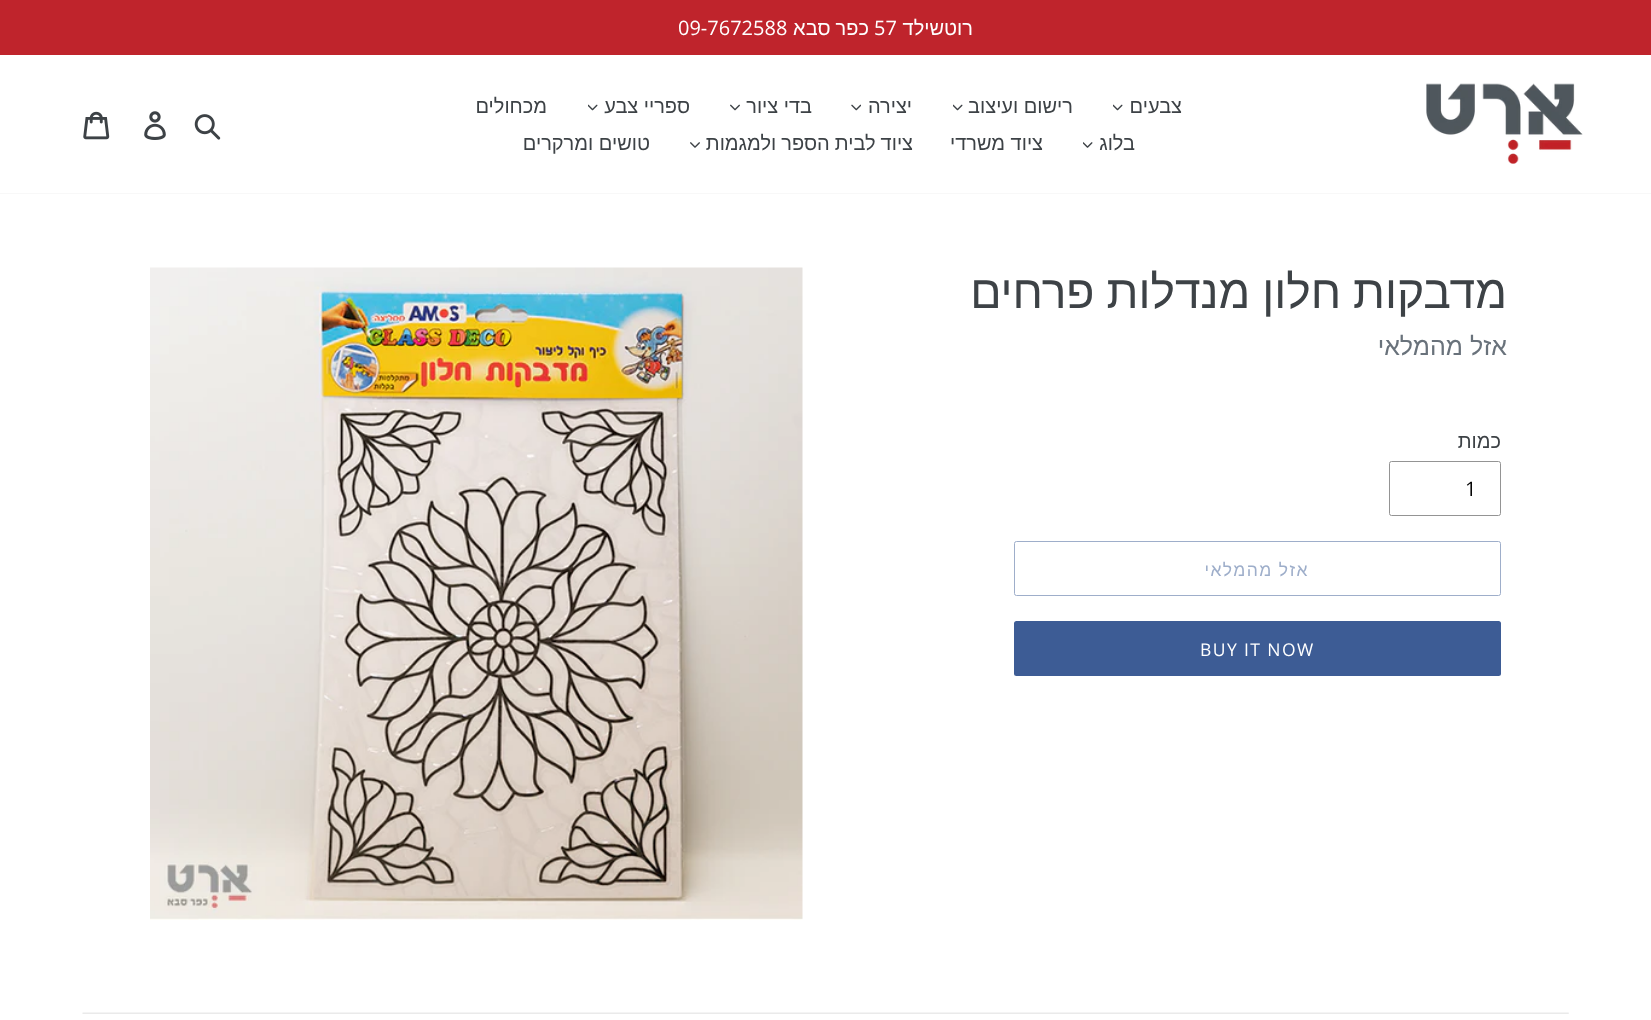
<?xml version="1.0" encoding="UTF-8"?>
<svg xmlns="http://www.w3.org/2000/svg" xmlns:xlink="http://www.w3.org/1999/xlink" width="1651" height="1020">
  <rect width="100%" height="100%" fill="#ffffff" />
  <rect width="1651" height="55" fill="#bf242c" />
  <rect y="193" width="1651" height="1" fill="#f8f8f8" />
  <image x="1426" y="83" width="157" height="81" xlink:href="image1.png" />
  <image x="1113" y="104" width="10" height="7" xlink:href="image2.png" />
  <image x="953" y="104" width="10" height="7" xlink:href="image2.png" />
  <image x="851" y="104" width="10" height="7" xlink:href="image3.png" />
  <image x="730" y="104" width="10" height="7" xlink:href="image4.png" />
  <image x="588" y="104" width="10" height="7" xlink:href="image2.png" />
  <image x="1083" y="142" width="10" height="6" xlink:href="image5.png" />
  <image x="690" y="142" width="10" height="6" xlink:href="image6.png" />
  <image x="194" y="114" width="27" height="26" xlink:href="image7.png" />
  <image x="144" y="111" width="22" height="29" xlink:href="image8.png" />
  <image x="83" y="111" width="27" height="29" xlink:href="image9.png" />
  <rect x="1389.5" y="461.5" width="111" height="54" rx="2" fill="none" stroke="#949494" />
  <rect x="1014.5" y="541.5" width="486" height="54" rx="2" fill="none" stroke="#9eaeca" />
  <rect x="1014" y="621" width="487" height="55" rx="2.5" fill="#3d5c95" />
  <image x="150" y="267" width="653" height="653" xlink:href="image10.png" />
  <image x="82" y="1012" width="1487" height="2" xlink:href="image11.png" />
  <text x="973" y="35" style="font-family: Liberation Sans; font-size: 20px; direction: rtl; fill: #ffffff">רוטשילד</text>
  <text x="874" y="35" style="font-family: Open Sans; font-size: 20px; fill: #ffffff">57</text>
  <text x="869" y="35" word-spacing="-0.5" style="font-family: Liberation Sans; font-size: 20px; direction: rtl; fill: #ffffff">כפר סבא</text>
  <text x="678" y="35" style="font-family: Open Sans; font-size: 20px; fill: #ffffff">09-7672588</text>
  <text x="1182" y="113" style="font-family: Liberation Sans; font-size: 20px; direction: rtl; fill: #3d4246">צבעים</text>
  <text x="1073" y="113" style="font-family: Liberation Sans; font-size: 20px; direction: rtl; fill: #3d4246">רישום ועיצוב</text>
  <text x="912" y="113" style="font-family: Liberation Sans; font-size: 20px; direction: rtl; fill: #3d4246">יצירה</text>
  <text x="812" y="113" style="font-family: Liberation Sans; font-size: 20px; direction: rtl; fill: #3d4246">בדי ציור</text>
  <text x="690" y="113" style="font-family: Liberation Sans; font-size: 20px; direction: rtl; fill: #3d4246">ספריי צבע</text>
  <text x="547" y="113" style="font-family: Liberation Sans; font-size: 20px; direction: rtl; fill: #3d4246">מכחולים</text>
  <text x="1135" y="150" style="font-family: Liberation Sans; font-size: 20px; direction: rtl; fill: #3d4246">בלוג</text>
  <text x="1043" y="150" style="font-family: Liberation Sans; font-size: 20px; direction: rtl; fill: #3d4246">ציוד משרדי</text>
  <text x="913" y="150" word-spacing="-0.5" style="font-family: Liberation Sans; font-size: 20px; direction: rtl; fill: #3d4246">ציוד לבית הספר ולמגמות</text>
  <text x="650" y="150" style="font-family: Liberation Sans; font-size: 20px; direction: rtl; fill: #3d4246">טושים ומרקרים</text>
  <text x="1507" y="308" word-spacing="-1" style="font-family: Liberation Sans; font-size: 46.25px; direction: rtl; fill: #3d4246">מדבקות חלון מנדלות פרחים</text>
  <text x="1507" y="355" style="font-family: Liberation Sans; font-size: 25px; direction: rtl; fill: #69727b">אזל מהמלאי</text>
  <text x="1501" y="448" style="font-family: Liberation Sans; font-size: 20px; direction: rtl; fill: #3d4246">כמות</text>
  <text x="1465" y="496" style="font-family: Open Sans; font-size: 20px; fill: #000000">1</text>
  <text x="1309" y="576" style="font-family: Liberation Sans; font-size: 17.5px; letter-spacing: 1.4px; direction: rtl; fill: #9eaeca">אזל מהמלאי</text>
  <text x="1200" y="656" style="font-family: Open Sans; font-size: 17.5px; letter-spacing: 1.4px; fill: #ffffff">BUY IT NOW</text>
</svg>
